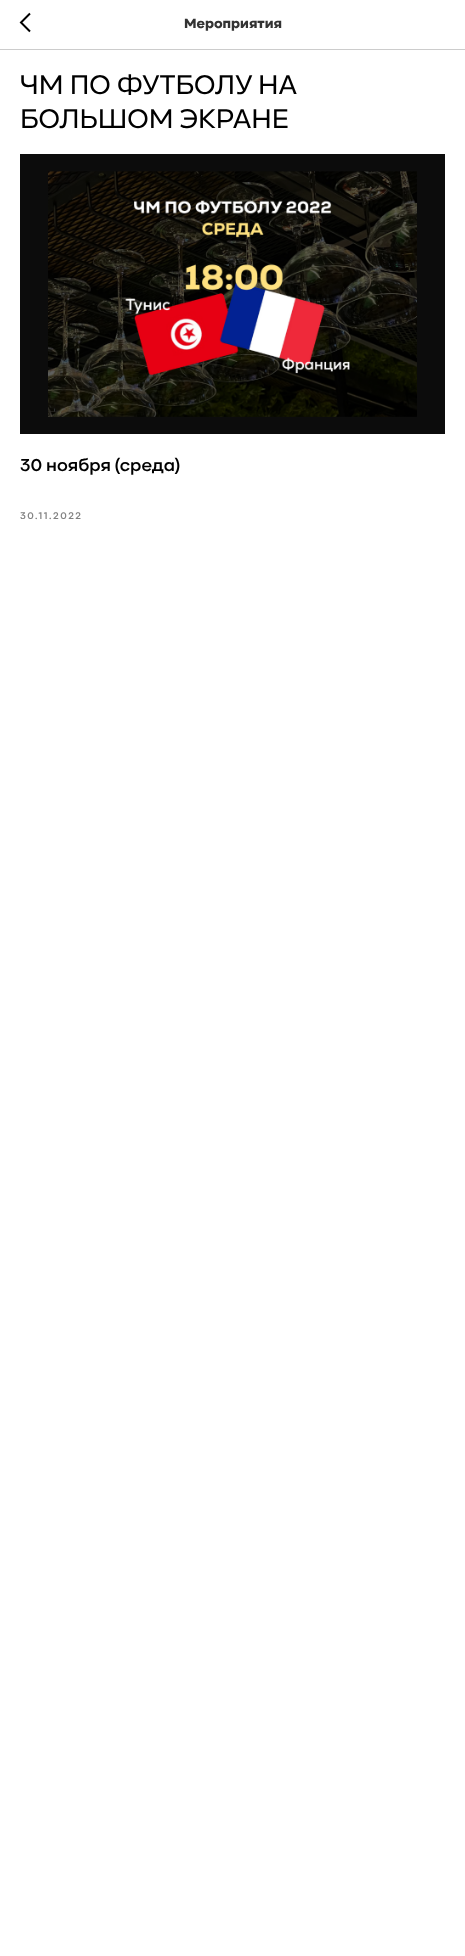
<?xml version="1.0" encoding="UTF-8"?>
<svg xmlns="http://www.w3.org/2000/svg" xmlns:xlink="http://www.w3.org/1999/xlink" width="465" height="1956">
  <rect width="100%" height="100%" fill="#ffffff" />
  <rect y="49" width="465" height="1" fill="#cccccc" />
  <path d="M 30 31.5 l -9 -9 l 9 -9" fill="none" stroke="#000000" stroke-width="2" />
  <image x="20" y="154" width="425" height="280" xlink:href="image1.png" />
  <text x="184" y="28" style="font-family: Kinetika; font-size: 14px; font-weight: 900; fill: #333333">Мероприятия</text>
  <text x="20" y="94" style="font-family: Kinetika; font-size: 28px; font-weight: 500; fill: #000000">ЧМ ПО ФУТБОЛУ НА</text>
  <text x="20" y="128" style="font-family: Kinetika; font-size: 28px; font-weight: 500; fill: #000000">БОЛЬШОМ ЭКРАНЕ</text>
  <text x="20" y="471" style="font-family: Kinetika; font-size: 18px; font-weight: 600; fill: #000000">30 ноября (среда)</text>
  <text x="20" y="519" style="font-family: Kinetika; font-size: 10px; font-weight: 600; letter-spacing: 1.5px; fill: #808080">30.11.2022</text>
</svg>
